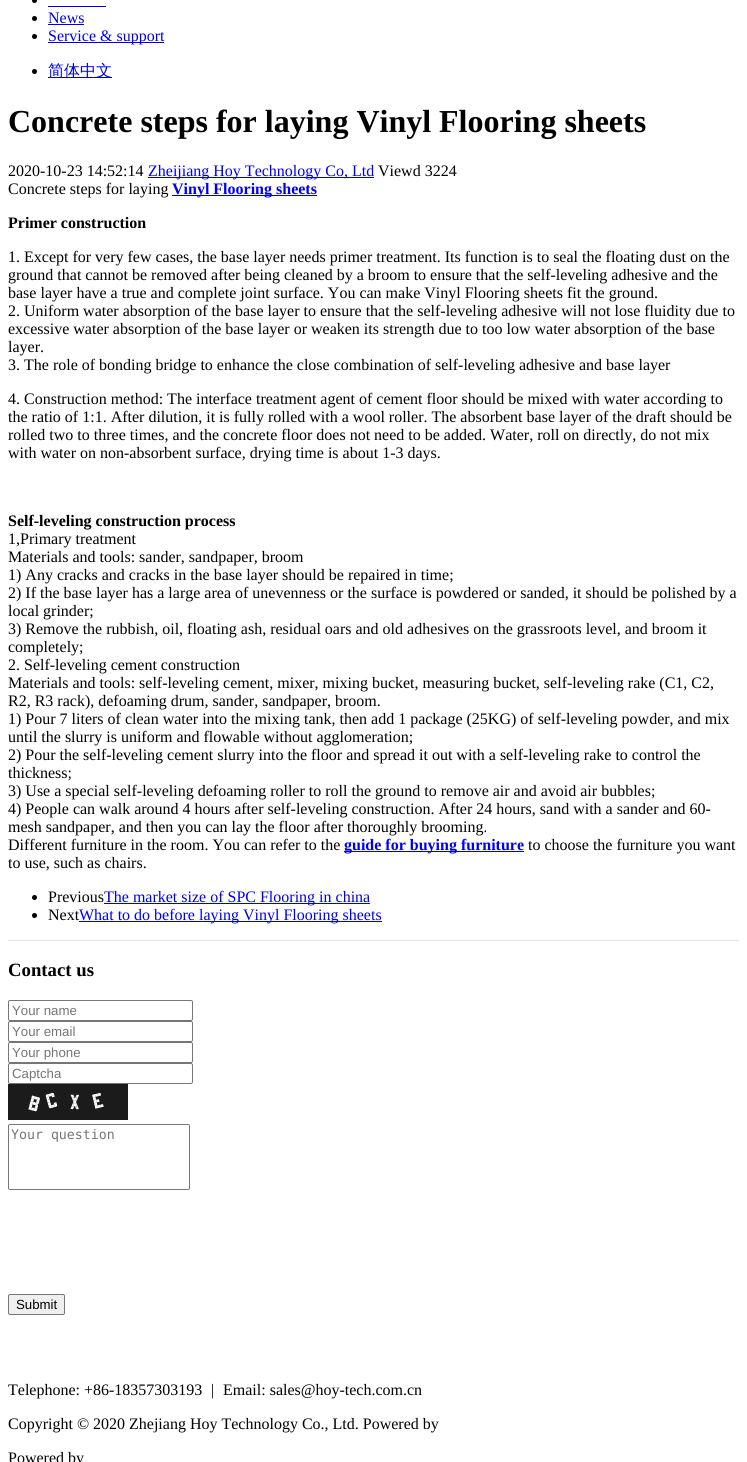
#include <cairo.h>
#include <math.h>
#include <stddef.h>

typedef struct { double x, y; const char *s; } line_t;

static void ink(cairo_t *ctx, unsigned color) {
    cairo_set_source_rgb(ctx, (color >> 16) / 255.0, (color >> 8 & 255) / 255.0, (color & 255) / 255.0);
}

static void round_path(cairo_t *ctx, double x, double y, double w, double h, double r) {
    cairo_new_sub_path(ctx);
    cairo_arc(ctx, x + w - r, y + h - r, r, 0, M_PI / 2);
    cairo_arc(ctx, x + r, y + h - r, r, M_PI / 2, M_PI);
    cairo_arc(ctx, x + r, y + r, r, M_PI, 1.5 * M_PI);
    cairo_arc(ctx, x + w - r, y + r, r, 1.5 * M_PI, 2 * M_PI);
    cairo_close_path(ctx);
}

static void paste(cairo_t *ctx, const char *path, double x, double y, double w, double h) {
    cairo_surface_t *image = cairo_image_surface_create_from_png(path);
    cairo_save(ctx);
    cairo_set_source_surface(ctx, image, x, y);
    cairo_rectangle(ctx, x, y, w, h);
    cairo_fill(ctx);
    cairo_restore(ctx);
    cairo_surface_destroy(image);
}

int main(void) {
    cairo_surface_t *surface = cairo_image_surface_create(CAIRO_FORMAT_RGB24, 747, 1462);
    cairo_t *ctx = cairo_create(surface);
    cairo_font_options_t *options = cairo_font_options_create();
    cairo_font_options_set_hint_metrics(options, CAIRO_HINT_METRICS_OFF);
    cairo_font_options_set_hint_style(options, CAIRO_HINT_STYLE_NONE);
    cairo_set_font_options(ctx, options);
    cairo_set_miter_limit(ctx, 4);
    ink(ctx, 0xFFFFFF);
    cairo_paint(ctx);
    ink(ctx, 0x000000);
    cairo_arc(ctx, 34.5, 0.5, 2.5, 0, 2 * M_PI);
    cairo_fill(ctx);
    ink(ctx, 0x0000EE);
    cairo_rectangle(ctx, 48, 6, 58, 1);
    cairo_fill(ctx);
    ink(ctx, 0x000000);
    cairo_arc(ctx, 34.5, 18.5, 2.5, 0, 2 * M_PI);
    cairo_fill(ctx);
    cairo_select_font_face(ctx, "Liberation Serif", CAIRO_FONT_SLANT_NORMAL, CAIRO_FONT_WEIGHT_NORMAL);
    cairo_set_font_size(ctx, 16);
    ink(ctx, 0x0000EE);
    cairo_move_to(ctx, 48, 23);
    cairo_show_text(ctx, "News");
    cairo_rectangle(ctx, 48, 24, 36, 1);
    cairo_fill(ctx);
    ink(ctx, 0x000000);
    cairo_arc(ctx, 34.5, 36.5, 2.5, 0, 2 * M_PI);
    cairo_fill(ctx);
    ink(ctx, 0x0000EE);
    cairo_rectangle(ctx, 48, 42, 116, 1);
    cairo_fill(ctx);
    cairo_move_to(ctx, 48, 41);
    cairo_show_text(ctx, "Service & support");
    ink(ctx, 0x000000);
    cairo_new_path(ctx);
    cairo_arc(ctx, 34.5, 71.5, 2.5, 0, 2 * M_PI);
    cairo_fill(ctx);
    ink(ctx, 0x0000EE);
    cairo_rectangle(ctx, 48, 77, 64, 1);
    cairo_fill(ctx);
    cairo_select_font_face(ctx, "WenQuanYi Zen Hei Medium", CAIRO_FONT_SLANT_NORMAL, CAIRO_FONT_WEIGHT_NORMAL);
    cairo_move_to(ctx, 48, 76);
    cairo_show_text(ctx, "简体中文");
    ink(ctx, 0xE5E5E5);
    cairo_rectangle(ctx, 8, 940, 731, 1);
    cairo_fill(ctx);
    cairo_select_font_face(ctx, "Liberation Serif", CAIRO_FONT_SLANT_NORMAL, CAIRO_FONT_WEIGHT_BOLD);
    cairo_set_font_size(ctx, 32);
    ink(ctx, 0x000000);
    cairo_move_to(ctx, 8, 132);
    cairo_show_text(ctx, "Concrete steps for laying Vinyl Flooring sheets");
    cairo_select_font_face(ctx, "Liberation Serif", CAIRO_FONT_SLANT_NORMAL, CAIRO_FONT_WEIGHT_NORMAL);
    cairo_set_font_size(ctx, 16);
    cairo_move_to(ctx, 8, 176);
    cairo_show_text(ctx, "2020-10-23 14:52:14");
    ink(ctx, 0x0000EE);
    cairo_rectangle(ctx, 148, 177, 226, 1);
    cairo_fill(ctx);
    cairo_move_to(ctx, 148, 176);
    cairo_show_text(ctx, "Zheijiang Hoy Technology Co, Ltd");
    ink(ctx, 0x000000);
    cairo_move_to(ctx, 378, 176);
    cairo_show_text(ctx, "Viewd 3224");
    cairo_move_to(ctx, 8, 194);
    cairo_show_text(ctx, "Concrete steps for laying");
    ink(ctx, 0x0000EE);
    cairo_rectangle(ctx, 172, 195, 145, 1);
    cairo_fill(ctx);
    cairo_select_font_face(ctx, "Liberation Serif", CAIRO_FONT_SLANT_NORMAL, CAIRO_FONT_WEIGHT_BOLD);
    cairo_move_to(ctx, 172, 194);
    cairo_show_text(ctx, "Vinyl Flooring sheets");
    ink(ctx, 0x000000);
    cairo_move_to(ctx, 8, 228);
    cairo_show_text(ctx, "Primer construction");
    cairo_select_font_face(ctx, "Liberation Serif", CAIRO_FONT_SLANT_NORMAL, CAIRO_FONT_WEIGHT_NORMAL);
    {
        static const line_t items[] = {
            {8, 262, "1. Except for very few cases, the base layer needs primer treatment. Its function is to seal the floating dust on the"},
            {8, 280, "ground that cannot be removed after being cleaned by a broom to ensure that the self-leveling adhesive and the"},
            {8, 298, "base layer have a true and complete joint surface. You can make Vinyl Flooring sheets fit the ground."},
            {8, 316, "2. Uniform water absorption of the base layer to ensure that the self-leveling adhesive will not lose fluidity due to"},
            {8, 334, "excessive water absorption of the base layer or weaken its strength due to too low water absorption of the base"},
            {8, 352, "layer."},
            {8, 370, "3. The role of bonding bridge to enhance the close combination of self-leveling adhesive and base layer"},
            {8, 404, "4. Construction method: The interface treatment agent of cement floor should be mixed with water according to"},
            {8, 422, "the ratio of 1:1. After dilution, it is fully rolled with a wool roller. The absorbent base layer of the draft should be"},
            {8, 440, "rolled two to three times, and the concrete floor does not need to be added. Water, roll on directly, do not mix"},
            {8, 458, "with water on non-absorbent surface, drying time is about 1-3 days."},
        };
        for (size_t i = 0; i < sizeof items / sizeof *items; i++) {
            cairo_move_to(ctx, items[i].x, items[i].y);
            cairo_show_text(ctx, items[i].s);
        }
    }
    cairo_select_font_face(ctx, "Liberation Serif", CAIRO_FONT_SLANT_NORMAL, CAIRO_FONT_WEIGHT_BOLD);
    cairo_move_to(ctx, 8, 526);
    cairo_show_text(ctx, "Self-leveling construction process");
    cairo_select_font_face(ctx, "Liberation Serif", CAIRO_FONT_SLANT_NORMAL, CAIRO_FONT_WEIGHT_NORMAL);
    {
        static const line_t items[] = {
            {8, 544, "1,Primary treatment"},
            {8, 562, "Materials and tools: sander, sandpaper, broom"},
            {8, 580, "1) Any cracks and cracks in the base layer should be repaired in time;"},
            {8, 598, "2) If the base layer has a large area of unevenness or the surface is powdered or sanded, it should be polished by a"},
            {8, 616, "local grinder;"},
            {8, 634, "3) Remove the rubbish, oil, floating ash, residual oars and old adhesives on the grassroots level, and broom it"},
            {8, 652, "completely;"},
            {8, 670, "2. Self-leveling cement construction"},
            {8, 688, "Materials and tools: self-leveling cement, mixer, mixing bucket, measuring bucket, self-leveling rake (C1, C2,"},
            {8, 706, "R2, R3 rack), defoaming drum, sander, sandpaper, broom."},
            {8, 724, "1) Pour 7 liters of clean water into the mixing tank, then add 1 package (25KG) of self-leveling powder, and mix"},
            {8, 742, "until the slurry is uniform and flowable without agglomeration;"},
            {8, 760, "2) Pour the self-leveling cement slurry into the floor and spread it out with a self-leveling rake to control the"},
            {8, 778, "thickness;"},
            {8, 796, "3) Use a special self-leveling defoaming roller to roll the ground to remove air and avoid air bubbles;"},
            {8, 814, "4) People can walk around 4 hours after self-leveling construction. After 24 hours, sand with a sander and 60-"},
            {8, 832, "mesh sandpaper, and then you can lay the floor after thoroughly brooming."},
            {8, 850, "Different furniture in the room. You can refer to the"},
        };
        for (size_t i = 0; i < sizeof items / sizeof *items; i++) {
            cairo_move_to(ctx, items[i].x, items[i].y);
            cairo_show_text(ctx, items[i].s);
        }
    }
    ink(ctx, 0x0000EE);
    cairo_rectangle(ctx, 344, 851, 180, 1);
    cairo_fill(ctx);
    cairo_select_font_face(ctx, "Liberation Serif", CAIRO_FONT_SLANT_NORMAL, CAIRO_FONT_WEIGHT_BOLD);
    cairo_move_to(ctx, 344, 850);
    cairo_show_text(ctx, "guide for buying furniture");
    cairo_select_font_face(ctx, "Liberation Serif", CAIRO_FONT_SLANT_NORMAL, CAIRO_FONT_WEIGHT_NORMAL);
    ink(ctx, 0x000000);
    cairo_move_to(ctx, 528, 850);
    cairo_show_text(ctx, "to choose the furniture you want");
    cairo_move_to(ctx, 8, 868);
    cairo_show_text(ctx, "to use, such as chairs.");
    cairo_new_path(ctx);
    cairo_arc(ctx, 34.5, 897.5, 2.5, 0, 2 * M_PI);
    cairo_fill(ctx);
    cairo_move_to(ctx, 48, 902);
    cairo_show_text(ctx, "Previous");
    ink(ctx, 0x0000EE);
    cairo_rectangle(ctx, 104, 903, 266, 1);
    cairo_fill(ctx);
    cairo_move_to(ctx, 104, 902);
    cairo_show_text(ctx, "The market size of SPC Flooring in china");
    ink(ctx, 0x000000);
    cairo_new_path(ctx);
    cairo_arc(ctx, 34.5, 915.5, 2.5, 0, 2 * M_PI);
    cairo_fill(ctx);
    cairo_move_to(ctx, 48, 920);
    cairo_show_text(ctx, "Next");
    ink(ctx, 0x0000EE);
    cairo_rectangle(ctx, 79, 921, 303, 1);
    cairo_fill(ctx);
    cairo_move_to(ctx, 79, 920);
    cairo_show_text(ctx, "What to do before laying Vinyl Flooring sheets");
    cairo_select_font_face(ctx, "Liberation Serif", CAIRO_FONT_SLANT_NORMAL, CAIRO_FONT_WEIGHT_BOLD);
    cairo_set_font_size(ctx, 18.75);
    ink(ctx, 0x000000);
    cairo_move_to(ctx, 8, 976);
    cairo_show_text(ctx, "Contact us");
    round_path(ctx, 8.5, 1000.5, 184, 20, 1.5);
    ink(ctx, 0x767676);
    cairo_set_line_width(ctx, 1);
    cairo_stroke(ctx);
    cairo_select_font_face(ctx, "Liberation Sans", CAIRO_FONT_SLANT_NORMAL, CAIRO_FONT_WEIGHT_NORMAL);
    cairo_set_font_size(ctx, 13.25);
    ink(ctx, 0x757575);
    cairo_move_to(ctx, 12, 1015);
    cairo_show_text(ctx, "Your name");
    round_path(ctx, 8.5, 1021.5, 184, 20, 1.5);
    ink(ctx, 0x767676);
    cairo_stroke(ctx);
    ink(ctx, 0x757575);
    cairo_move_to(ctx, 12, 1036);
    cairo_show_text(ctx, "Your email");
    round_path(ctx, 8.5, 1042.5, 184, 20, 1.5);
    ink(ctx, 0x767676);
    cairo_stroke(ctx);
    ink(ctx, 0x757575);
    cairo_move_to(ctx, 12, 1057);
    cairo_show_text(ctx, "Your phone");
    round_path(ctx, 8.5, 1063.5, 184, 20, 1.5);
    ink(ctx, 0x767676);
    cairo_stroke(ctx);
    ink(ctx, 0x757575);
    cairo_move_to(ctx, 12, 1078);
    cairo_show_text(ctx, "Captcha");
    paste(ctx, "media/1.png", 8, 1084, 120, 36);
    round_path(ctx, 8.5, 1124.5, 181, 65, 1.5);
    ink(ctx, 0x767676);
    cairo_stroke(ctx);
    cairo_select_font_face(ctx, "DejaVu Sans Mono", CAIRO_FONT_SLANT_NORMAL, CAIRO_FONT_WEIGHT_NORMAL);
    ink(ctx, 0x757575);
    cairo_move_to(ctx, 11, 1139);
    cairo_show_text(ctx, "Your question");
    ink(ctx, 0xEFEFEF);
    round_path(ctx, 8.5, 1294.5, 56, 20, 1.5);
    cairo_fill_preserve(ctx);
    ink(ctx, 0x767676);
    cairo_stroke(ctx);
    cairo_select_font_face(ctx, "Liberation Sans", CAIRO_FONT_SLANT_NORMAL, CAIRO_FONT_WEIGHT_NORMAL);
    ink(ctx, 0x000000);
    cairo_move_to(ctx, 16, 1309);
    cairo_show_text(ctx, "Submit");
    cairo_select_font_face(ctx, "Liberation Serif", CAIRO_FONT_SLANT_NORMAL, CAIRO_FONT_WEIGHT_NORMAL);
    cairo_set_font_size(ctx, 16);
    cairo_move_to(ctx, 8, 1395);
    cairo_show_text(ctx, "Telephone: +86-18357303193");
    cairo_select_font_face(ctx, "Liberation Serif", CAIRO_FONT_SLANT_ITALIC, CAIRO_FONT_WEIGHT_NORMAL);
    cairo_move_to(ctx, 210, 1395);
    cairo_show_text(ctx, "|");
    cairo_select_font_face(ctx, "Liberation Serif", CAIRO_FONT_SLANT_NORMAL, CAIRO_FONT_WEIGHT_NORMAL);
    {
        static const line_t items[] = {
            {223, 1395, "Email: sales@hoy-tech.com.cn"},
            {8, 1429, "Copyright © 2020 Zhejiang Hoy Technology Co., Ltd. Powered by"},
            {8, 1463, "Powered by"},
        };
        for (size_t i = 0; i < sizeof items / sizeof *items; i++) {
            cairo_move_to(ctx, items[i].x, items[i].y);
            cairo_show_text(ctx, items[i].s);
        }
    }
    cairo_surface_write_to_png(surface, "image.png");
    cairo_font_options_destroy(options);
    cairo_destroy(ctx);
    cairo_surface_destroy(surface);
    return 0;
}
